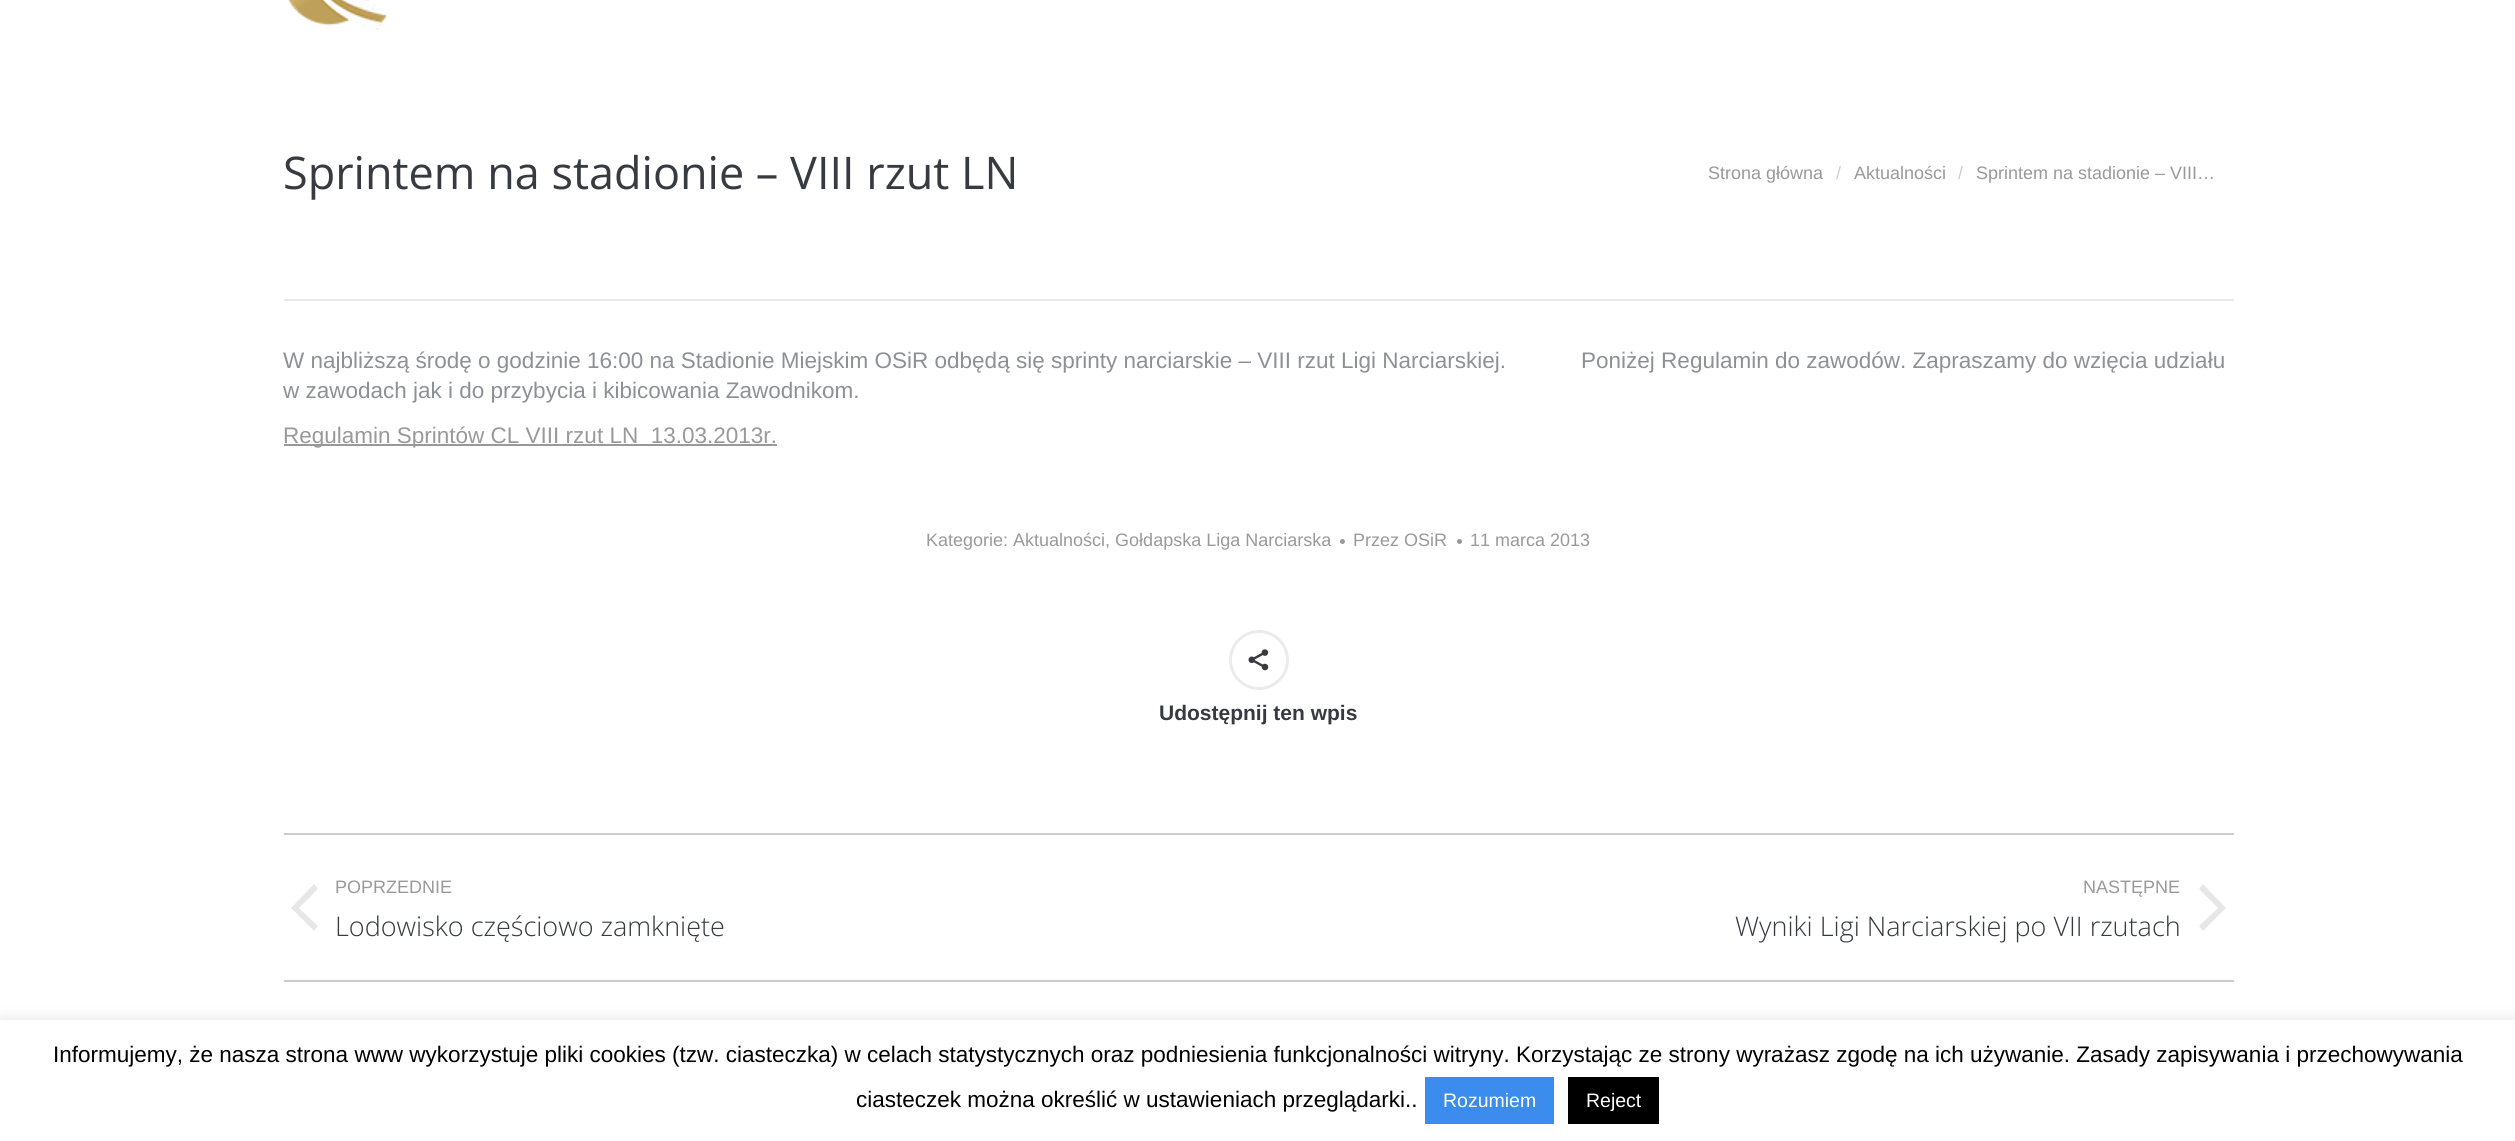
#include <cairo.h>
#include <math.h>
#include <stddef.h>


static void ink(cairo_t *ctx, unsigned color) {
    cairo_set_source_rgb(ctx, (color >> 16) / 255.0, (color >> 8 & 255) / 255.0, (color & 255) / 255.0);
}

static void round_path(cairo_t *ctx, double x, double y, double w, double h, double r) {
    cairo_new_sub_path(ctx);
    cairo_arc(ctx, x + w - r, y + h - r, r, 0, M_PI / 2);
    cairo_arc(ctx, x + r, y + h - r, r, M_PI / 2, M_PI);
    cairo_arc(ctx, x + r, y + r, r, M_PI, 1.5 * M_PI);
    cairo_arc(ctx, x + w - r, y + r, r, 1.5 * M_PI, 2 * M_PI);
    cairo_close_path(ctx);
}

static void blur_box(cairo_t *ctx, double x, double y, double w, double h, double r, double blur, double alpha) {
    cairo_push_group_with_content(ctx, CAIRO_CONTENT_ALPHA);
    cairo_set_operator(ctx, CAIRO_OPERATOR_SOURCE);
    for (int i = 15; i >= -15 && fmin(w, h) + blur * i / 3 > 0; i -= 2) {
        double e = blur * i / 6;
        cairo_set_source_rgba(ctx, 0, 0, 0, alpha * erfc((i - 1) / 8.5) / 2);
        round_path(ctx, x - e, y - e, w + 2 * e, h + 2 * e, fmax(0, fmin(r + e + blur * .6, fmin(w, h) / 2 + e)));
        cairo_fill(ctx);
    }
    cairo_pattern_t *soft = cairo_pop_group(ctx);
    cairo_mask(ctx, soft);
    cairo_pattern_destroy(soft);
}

static void paste(cairo_t *ctx, const char *path, double x, double y, double w, double h) {
    cairo_surface_t *image = cairo_image_surface_create_from_png(path);
    cairo_save(ctx);
    cairo_set_source_surface(ctx, image, x, y);
    cairo_rectangle(ctx, x, y, w, h);
    cairo_fill(ctx);
    cairo_restore(ctx);
    cairo_surface_destroy(image);
}

int main(void) {
    cairo_surface_t *surface = cairo_image_surface_create(CAIRO_FORMAT_RGB24, 2515, 1141);
    cairo_t *ctx = cairo_create(surface);
    cairo_font_options_t *options = cairo_font_options_create();
    cairo_font_options_set_hint_metrics(options, CAIRO_HINT_METRICS_OFF);
    cairo_font_options_set_hint_style(options, CAIRO_HINT_STYLE_NONE);
    cairo_set_font_options(ctx, options);
    cairo_set_miter_limit(ctx, 4);
    ink(ctx, 0xFFFFFF);
    cairo_paint(ctx);
    paste(ctx, "media/1.png", 287, 0, 101, 30);
    cairo_select_font_face(ctx, "Open Sans", CAIRO_FONT_SLANT_NORMAL, CAIRO_FONT_WEIGHT_NORMAL);
    cairo_set_font_size(ctx, 45);
    ink(ctx, 0x373A41);
    cairo_move_to(ctx, 283, 189);
    cairo_show_text(ctx, "Sprintem na stadionie – VIII rzut LN");
    cairo_select_font_face(ctx, "Liberation Sans", CAIRO_FONT_SLANT_NORMAL, CAIRO_FONT_WEIGHT_NORMAL);
    cairo_set_font_size(ctx, 18);
    ink(ctx, 0x999999);
    cairo_move_to(ctx, 1708, 179);
    cairo_show_text(ctx, "Strona główna");
    ink(ctx, 0xCCCCCC);
    cairo_move_to(ctx, 1836, 179);
    cairo_show_text(ctx, "/");
    ink(ctx, 0x999999);
    cairo_move_to(ctx, 1854, 179);
    cairo_show_text(ctx, "Aktualności");
    ink(ctx, 0xCCCCCC);
    cairo_move_to(ctx, 1958, 179);
    cairo_show_text(ctx, "/");
    ink(ctx, 0x999999);
    cairo_move_to(ctx, 1976, 179);
    cairo_show_text(ctx, "Sprintem na stadionie – VIII…");
    ink(ctx, 0xE9E9E9);
    cairo_rectangle(ctx, 284, 299, 1950, 2);
    cairo_fill(ctx);
    cairo_set_font_size(ctx, 22.5);
    ink(ctx, 0x8D9095);
    cairo_move_to(ctx, 283, 368);
    cairo_show_text(ctx, "W najbliższą środę o godzinie 16:00 na Stadionie Miejskim OSiR odbędą się sprinty narciarskie – VIII rzut Ligi Narciarskiej.            Poniżej Regulamin do zawodów. Zapraszamy do wzięcia udziału");
    cairo_move_to(ctx, 283, 398);
    cairo_show_text(ctx, "w zawodach jak i do przybycia i kibicowania Zawodnikom.");
    ink(ctx, 0x999999);
    cairo_rectangle(ctx, 284, 444, 493, 2);
    cairo_fill(ctx);
    cairo_move_to(ctx, 283, 443);
    cairo_show_text(ctx, "Regulamin Sprintów CL VIII rzut LN  13.03.2013r.");
    cairo_set_font_size(ctx, 18);
    cairo_move_to(ctx, 926, 546);
    cairo_show_text(ctx, "Kategorie: Aktualności, Gołdapska Liga Narciarska");
    cairo_new_path(ctx);
    cairo_arc(ctx, 1342.5, 541.5, 2.5, 0, 2 * M_PI);
    cairo_fill(ctx);
    cairo_move_to(ctx, 1353, 546);
    cairo_show_text(ctx, "Przez OSiR");
    cairo_new_path(ctx);
    cairo_arc(ctx, 1459.5, 541.5, 2.5, 0, 2 * M_PI);
    cairo_fill(ctx);
    cairo_move_to(ctx, 1470, 546);
    cairo_show_text(ctx, "11 marca 2013");
    cairo_new_path(ctx);
    cairo_arc(ctx, 1259, 660, 28.5, 0, 2 * M_PI);
    ink(ctx, 0xEBEBEC);
    cairo_set_line_width(ctx, 3);
    cairo_stroke(ctx);
    paste(ctx, "media/2.png", 1248, 649, 21, 22);
    cairo_select_font_face(ctx, "Liberation Sans", CAIRO_FONT_SLANT_NORMAL, CAIRO_FONT_WEIGHT_BOLD);
    cairo_set_font_size(ctx, 21);
    ink(ctx, 0x373A41);
    cairo_move_to(ctx, 1159, 720);
    cairo_show_text(ctx, "Udostępnij ten wpis");
    ink(ctx, 0xCCCCCC);
    cairo_rectangle(ctx, 284, 833, 1950, 2);
    cairo_fill(ctx);
    cairo_rectangle(ctx, 284, 980, 1950, 2);
    cairo_fill(ctx);
    ink(ctx, 0xE7E7E8);
    cairo_new_path(ctx);
    cairo_move_to(ctx, 299, 908);
    cairo_line_to(ctx, 318, 889);
    cairo_line_to(ctx, 314, 884);
    cairo_line_to(ctx, 291, 908);
    cairo_line_to(ctx, 314, 931);
    cairo_line_to(ctx, 318, 926);
    cairo_close_path(ctx);
    cairo_fill(ctx);
    cairo_select_font_face(ctx, "Liberation Sans", CAIRO_FONT_SLANT_NORMAL, CAIRO_FONT_WEIGHT_NORMAL);
    cairo_set_font_size(ctx, 18);
    ink(ctx, 0x999999);
    cairo_move_to(ctx, 335, 893);
    cairo_show_text(ctx, "POPRZEDNIE");
    cairo_select_font_face(ctx, "Open Sans Light", CAIRO_FONT_SLANT_NORMAL, CAIRO_FONT_WEIGHT_NORMAL);
    cairo_set_font_size(ctx, 27);
    ink(ctx, 0x373A41);
    cairo_move_to(ctx, 335, 936);
    cairo_show_text(ctx, "Lodowisko częściowo zamknięte");
    cairo_select_font_face(ctx, "Liberation Sans", CAIRO_FONT_SLANT_NORMAL, CAIRO_FONT_WEIGHT_NORMAL);
    cairo_set_font_size(ctx, 18);
    ink(ctx, 0x999999);
    cairo_move_to(ctx, 2083, 893);
    cairo_show_text(ctx, "NASTĘPNE");
    ink(ctx, 0xE7E7E8);
    cairo_new_path(ctx);
    cairo_move_to(ctx, 2218, 908);
    cairo_line_to(ctx, 2199, 889);
    cairo_line_to(ctx, 2203, 884);
    cairo_line_to(ctx, 2226, 908);
    cairo_line_to(ctx, 2203, 931);
    cairo_line_to(ctx, 2199, 926);
    cairo_close_path(ctx);
    cairo_fill(ctx);
    cairo_select_font_face(ctx, "Open Sans Light", CAIRO_FONT_SLANT_NORMAL, CAIRO_FONT_WEIGHT_NORMAL);
    cairo_set_font_size(ctx, 27);
    ink(ctx, 0x373A41);
    cairo_move_to(ctx, 1735, 936);
    cairo_show_text(ctx, "Wyniki Ligi Narciarskiej po VII rzutach");
    ink(ctx, 0xACABAB);
    blur_box(ctx, 0, 1019, 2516, 121, 0, 7.5, 0.3);
    ink(ctx, 0xFFFFFF);
    cairo_rectangle(ctx, 0, 1020, 2515, 121);
    cairo_fill(ctx);
    cairo_select_font_face(ctx, "Liberation Sans", CAIRO_FONT_SLANT_NORMAL, CAIRO_FONT_WEIGHT_NORMAL);
    cairo_set_font_size(ctx, 22.5);
    ink(ctx, 0x000000);
    cairo_move_to(ctx, 53, 1062);
    cairo_show_text(ctx, "Informujemy, że nasza strona www wykorzystuje pliki cookies (tzw. ciasteczka) w celach statystycznych oraz podniesienia funkcjonalności witryny. Korzystając ze strony wyrażasz zgodę na ich używanie. Zasady zapisywania i przechowywania");
    cairo_move_to(ctx, 856, 1107);
    cairo_show_text(ctx, "ciasteczek można określić w ustawieniach przeglądarki..");
    ink(ctx, 0x3B8CED);
    cairo_rectangle(ctx, 1425, 1077, 129, 47);
    cairo_fill(ctx);
    cairo_set_font_size(ctx, 19.5);
    ink(ctx, 0xFFFFFF);
    cairo_move_to(ctx, 1443, 1107);
    cairo_show_text(ctx, "Rozumiem");
    ink(ctx, 0x000000);
    cairo_rectangle(ctx, 1568, 1077, 91, 47);
    cairo_fill(ctx);
    ink(ctx, 0xFFFFFF);
    cairo_move_to(ctx, 1586, 1107);
    cairo_show_text(ctx, "Reject");
    cairo_surface_write_to_png(surface, "image.png");
    cairo_font_options_destroy(options);
    cairo_destroy(ctx);
    cairo_surface_destroy(surface);
    return 0;
}
